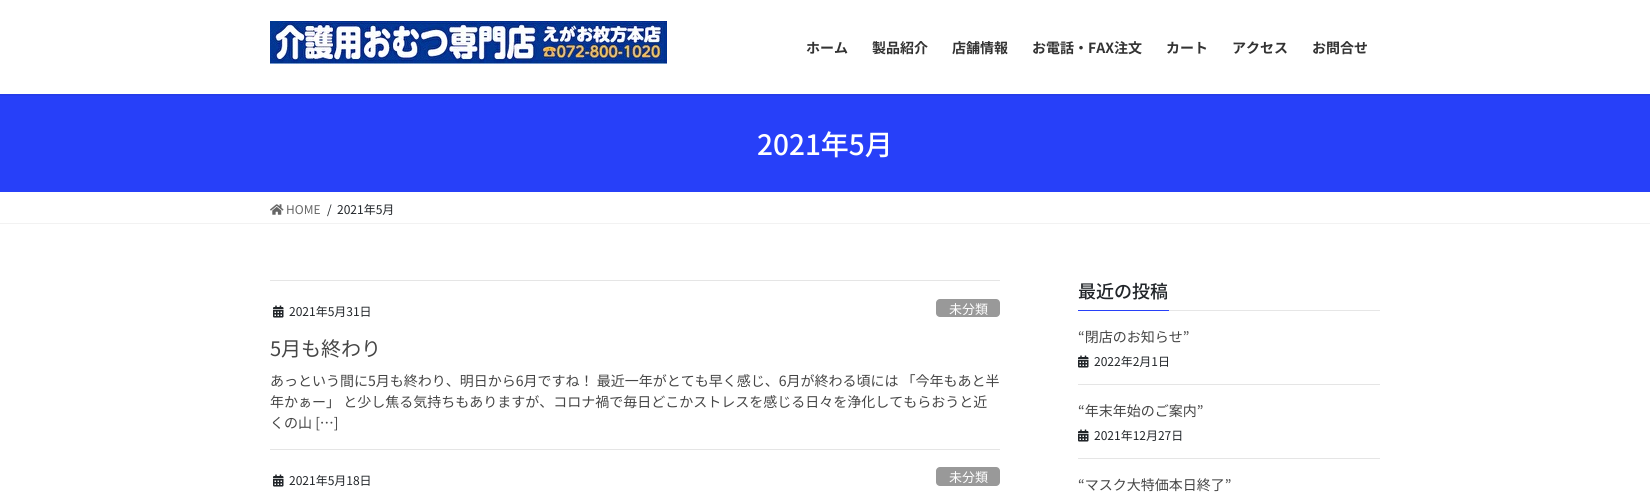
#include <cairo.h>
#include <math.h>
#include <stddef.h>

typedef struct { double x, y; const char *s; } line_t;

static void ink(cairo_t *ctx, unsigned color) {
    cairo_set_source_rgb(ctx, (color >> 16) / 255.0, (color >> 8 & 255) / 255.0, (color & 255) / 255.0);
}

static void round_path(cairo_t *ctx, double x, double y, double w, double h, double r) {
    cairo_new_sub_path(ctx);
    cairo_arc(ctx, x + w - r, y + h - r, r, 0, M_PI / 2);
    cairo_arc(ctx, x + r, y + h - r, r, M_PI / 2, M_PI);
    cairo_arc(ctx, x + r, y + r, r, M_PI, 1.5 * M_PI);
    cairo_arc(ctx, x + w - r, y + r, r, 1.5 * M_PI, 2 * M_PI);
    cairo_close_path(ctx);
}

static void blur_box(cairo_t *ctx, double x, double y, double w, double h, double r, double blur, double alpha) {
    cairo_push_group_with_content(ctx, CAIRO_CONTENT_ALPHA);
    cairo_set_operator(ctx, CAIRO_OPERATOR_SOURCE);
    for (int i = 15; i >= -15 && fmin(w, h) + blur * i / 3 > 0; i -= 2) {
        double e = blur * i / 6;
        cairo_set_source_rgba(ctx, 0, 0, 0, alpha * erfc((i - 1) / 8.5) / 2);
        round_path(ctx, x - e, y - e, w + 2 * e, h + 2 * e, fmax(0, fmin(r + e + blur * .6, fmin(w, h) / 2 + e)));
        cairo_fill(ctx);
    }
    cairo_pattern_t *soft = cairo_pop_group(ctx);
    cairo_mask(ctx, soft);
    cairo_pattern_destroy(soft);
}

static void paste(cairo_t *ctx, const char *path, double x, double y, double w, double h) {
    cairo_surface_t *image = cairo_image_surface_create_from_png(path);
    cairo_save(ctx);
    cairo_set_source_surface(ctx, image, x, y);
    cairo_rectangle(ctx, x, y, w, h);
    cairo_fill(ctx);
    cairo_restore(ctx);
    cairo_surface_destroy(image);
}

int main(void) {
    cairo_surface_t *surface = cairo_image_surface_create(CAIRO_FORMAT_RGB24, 1650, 501);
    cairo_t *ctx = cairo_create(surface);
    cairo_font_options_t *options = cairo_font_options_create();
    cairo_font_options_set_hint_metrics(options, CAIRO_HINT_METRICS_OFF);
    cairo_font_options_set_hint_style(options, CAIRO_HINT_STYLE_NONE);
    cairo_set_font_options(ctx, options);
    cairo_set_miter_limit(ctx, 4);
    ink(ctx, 0xFFFFFF);
    cairo_paint(ctx);
    ink(ctx, 0x2740F9);
    cairo_rectangle(ctx, 0, 94, 1650, 98);
    cairo_fill(ctx);
    cairo_save(ctx);
    cairo_rectangle(ctx, 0, 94, 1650, 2);
    cairo_clip(ctx);
    ink(ctx, 0x000000);
    blur_box(ctx, 0, 1, 1650, 94, 0, 1.5, 0.1);
    cairo_restore(ctx);
    paste(ctx, "media/1.png", 270, 21, 397, 43);
    cairo_select_font_face(ctx, "Noto Sans JP", CAIRO_FONT_SLANT_NORMAL, CAIRO_FONT_WEIGHT_BOLD);
    cairo_set_font_size(ctx, 14);
    ink(ctx, 0x333333);
    {
        static const line_t items[] = {
            {806, 53, "ホーム"},
            {872, 53, "製品紹介"},
            {952, 53, "店舗情報"},
            {1032, 53, "お電話・FAX注文"},
            {1166, 53, "カート"},
            {1232, 53, "アクセス"},
            {1312, 53, "お問合せ"},
        };
        for (size_t i = 0; i < sizeof items / sizeof *items; i++) {
            cairo_move_to(ctx, items[i].x, items[i].y);
            cairo_show_text(ctx, items[i].s);
        }
    }
    cairo_select_font_face(ctx, "Noto Sans JP Medium", CAIRO_FONT_SLANT_NORMAL, CAIRO_FONT_WEIGHT_NORMAL);
    cairo_set_font_size(ctx, 28);
    ink(ctx, 0xFFFFFF);
    cairo_move_to(ctx, 757, 155);
    cairo_show_text(ctx, "2021年5月");
    ink(ctx, 0xF2F2F2);
    cairo_rectangle(ctx, 0, 223, 1650, 1);
    cairo_fill(ctx);
    paste(ctx, "media/2.png", 270, 204, 14, 11);
    cairo_select_font_face(ctx, "Noto Sans JP", CAIRO_FONT_SLANT_NORMAL, CAIRO_FONT_WEIGHT_NORMAL);
    cairo_set_font_size(ctx, 12);
    ink(ctx, 0x666666);
    cairo_move_to(ctx, 286, 214);
    cairo_show_text(ctx, "HOME");
    ink(ctx, 0x212529);
    cairo_move_to(ctx, 327, 214);
    cairo_show_text(ctx, "/");
    cairo_move_to(ctx, 337, 214);
    cairo_show_text(ctx, "2021年5月");
    ink(ctx, 0xE5E5E5);
    cairo_rectangle(ctx, 270, 280, 730, 1);
    cairo_fill(ctx);
    cairo_rectangle(ctx, 270, 449, 730, 1);
    cairo_fill(ctx);
    paste(ctx, "media/3.png", 273, 305, 11, 13);
    ink(ctx, 0x212529);
    cairo_move_to(ctx, 289, 316);
    cairo_show_text(ctx, "2021年5月31日");
    ink(ctx, 0x999999);
    round_path(ctx, 936, 299, 64, 18, 4);
    cairo_fill(ctx);
    cairo_set_font_size(ctx, 13);
    ink(ctx, 0xFFFFFF);
    cairo_move_to(ctx, 949, 314);
    cairo_show_text(ctx, "未分類");
    cairo_set_font_size(ctx, 20);
    ink(ctx, 0x464646);
    cairo_move_to(ctx, 270, 356);
    cairo_show_text(ctx, "5月も終わり");
    cairo_set_font_size(ctx, 14);
    {
        static const line_t items[] = {
            {270, 386, "あっという間に5月も終わり、明日から6月ですね！ 最近一年がとても早く感じ、6月が終わる頃には 「今年もあと半"},
            {270, 407, "年かぁー」 と少し焦る気持ちもありますが、コロナ禍で毎日どこかストレスを感じる日々を浄化してもらおうと近"},
            {270, 428, "くの山 […]"},
        };
        for (size_t i = 0; i < sizeof items / sizeof *items; i++) {
            cairo_move_to(ctx, items[i].x, items[i].y);
            cairo_show_text(ctx, items[i].s);
        }
    }
    paste(ctx, "media/3.png", 273, 474, 11, 13);
    cairo_set_font_size(ctx, 12);
    ink(ctx, 0x212529);
    cairo_move_to(ctx, 289, 485);
    cairo_show_text(ctx, "2021年5月18日");
    ink(ctx, 0x999999);
    round_path(ctx, 936, 467, 64, 19, 4);
    cairo_fill(ctx);
    cairo_set_font_size(ctx, 13);
    ink(ctx, 0xFFFFFF);
    cairo_move_to(ctx, 949, 482);
    cairo_show_text(ctx, "未分類");
    ink(ctx, 0xE6E6E6);
    cairo_rectangle(ctx, 1169, 310, 211, 1);
    cairo_fill(ctx);
    cairo_select_font_face(ctx, "Noto Sans JP Medium", CAIRO_FONT_SLANT_NORMAL, CAIRO_FONT_WEIGHT_NORMAL);
    cairo_set_font_size(ctx, 18);
    ink(ctx, 0x212529);
    cairo_move_to(ctx, 1078, 298);
    cairo_show_text(ctx, "最近の投稿");
    ink(ctx, 0x2740F9);
    cairo_rectangle(ctx, 1078, 310, 91, 1);
    cairo_fill(ctx);
    ink(ctx, 0xE5E5E5);
    cairo_rectangle(ctx, 1078, 384, 302, 1);
    cairo_fill(ctx);
    cairo_select_font_face(ctx, "Noto Sans JP", CAIRO_FONT_SLANT_NORMAL, CAIRO_FONT_WEIGHT_NORMAL);
    cairo_set_font_size(ctx, 14);
    ink(ctx, 0x464646);
    cairo_move_to(ctx, 1078, 342);
    cairo_show_text(ctx, "“閉店のお知らせ”");
    paste(ctx, "media/3.png", 1078, 355, 11, 13);
    cairo_set_font_size(ctx, 12);
    ink(ctx, 0x212529);
    cairo_move_to(ctx, 1094, 366);
    cairo_show_text(ctx, "2022年2月1日");
    ink(ctx, 0xE5E5E5);
    cairo_rectangle(ctx, 1078, 458, 302, 1);
    cairo_fill(ctx);
    cairo_set_font_size(ctx, 14);
    ink(ctx, 0x464646);
    cairo_move_to(ctx, 1078, 416);
    cairo_show_text(ctx, "“年末年始のご案内”");
    paste(ctx, "media/3.png", 1078, 429, 11, 13);
    cairo_set_font_size(ctx, 12);
    ink(ctx, 0x212529);
    cairo_move_to(ctx, 1094, 440);
    cairo_show_text(ctx, "2021年12月27日");
    cairo_set_font_size(ctx, 14);
    ink(ctx, 0x464646);
    cairo_move_to(ctx, 1078, 490);
    cairo_show_text(ctx, "“マスク大特価本日終了”");
    cairo_surface_write_to_png(surface, "image.png");
    cairo_font_options_destroy(options);
    cairo_destroy(ctx);
    cairo_surface_destroy(surface);
    return 0;
}
